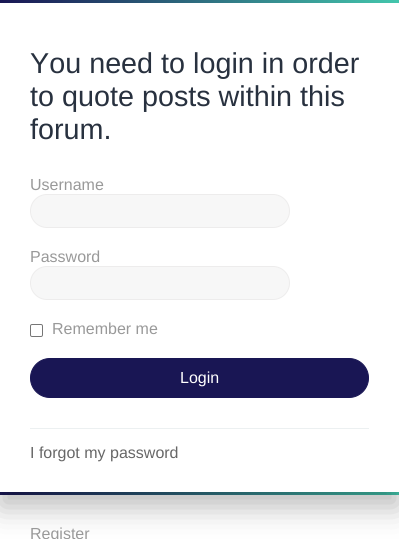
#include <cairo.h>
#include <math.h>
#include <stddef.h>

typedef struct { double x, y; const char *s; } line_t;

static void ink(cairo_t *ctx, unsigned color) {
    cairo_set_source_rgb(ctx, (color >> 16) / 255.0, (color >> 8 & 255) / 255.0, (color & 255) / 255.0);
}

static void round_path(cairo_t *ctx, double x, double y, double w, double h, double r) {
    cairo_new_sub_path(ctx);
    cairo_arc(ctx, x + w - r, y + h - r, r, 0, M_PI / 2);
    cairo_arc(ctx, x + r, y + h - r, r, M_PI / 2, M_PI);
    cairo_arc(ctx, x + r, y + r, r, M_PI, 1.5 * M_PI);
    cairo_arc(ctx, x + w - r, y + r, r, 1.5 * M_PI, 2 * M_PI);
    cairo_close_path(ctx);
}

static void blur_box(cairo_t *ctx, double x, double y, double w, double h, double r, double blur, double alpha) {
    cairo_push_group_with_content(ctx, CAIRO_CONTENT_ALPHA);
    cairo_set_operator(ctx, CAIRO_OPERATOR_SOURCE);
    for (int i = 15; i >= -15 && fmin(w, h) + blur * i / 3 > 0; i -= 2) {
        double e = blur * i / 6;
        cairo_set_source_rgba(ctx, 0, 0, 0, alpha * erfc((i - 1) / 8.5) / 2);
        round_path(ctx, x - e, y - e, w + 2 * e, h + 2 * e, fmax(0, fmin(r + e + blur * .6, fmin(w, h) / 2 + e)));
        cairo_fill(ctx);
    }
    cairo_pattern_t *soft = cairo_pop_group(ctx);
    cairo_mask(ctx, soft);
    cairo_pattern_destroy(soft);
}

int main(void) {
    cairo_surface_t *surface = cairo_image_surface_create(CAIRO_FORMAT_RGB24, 399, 539);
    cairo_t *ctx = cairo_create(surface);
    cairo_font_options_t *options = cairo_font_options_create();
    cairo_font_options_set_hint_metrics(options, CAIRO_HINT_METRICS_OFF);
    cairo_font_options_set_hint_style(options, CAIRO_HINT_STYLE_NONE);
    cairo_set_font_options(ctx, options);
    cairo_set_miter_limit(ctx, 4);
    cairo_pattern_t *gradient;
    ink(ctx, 0xFFFFFF);
    cairo_paint(ctx);
    gradient = cairo_pattern_create_linear(0, 494, 399, 494);
    cairo_pattern_add_color_stop_rgba(gradient, 0, 0.098, 0.086, 0.329, 1);
    cairo_pattern_add_color_stop_rgba(gradient, 1, 0.263, 0.776, 0.675, 1);
    cairo_set_source(ctx, gradient);
    cairo_pattern_destroy(gradient);
    cairo_rectangle(ctx, 0, 492, 399, 3);
    cairo_fill(ctx);
    ink(ctx, 0x000000);
    blur_box(ctx, 0, 15, 399, 492, 0, 15, 0.27);
    ink(ctx, 0xFFFFFF);
    cairo_rectangle(ctx, 0, 3, 399, 489);
    cairo_fill(ctx);
    gradient = cairo_pattern_create_linear(0, 1.5, 399, 1.5);
    cairo_pattern_add_color_stop_rgba(gradient, 0, 0.098, 0.086, 0.329, 1);
    cairo_pattern_add_color_stop_rgba(gradient, 1, 0.263, 0.776, 0.675, 1);
    cairo_set_source(ctx, gradient);
    cairo_pattern_destroy(gradient);
    cairo_rectangle(ctx, 0, 0, 399, 3);
    cairo_fill(ctx);
    cairo_select_font_face(ctx, "Liberation Sans", CAIRO_FONT_SLANT_NORMAL, CAIRO_FONT_WEIGHT_NORMAL);
    cairo_set_font_size(ctx, 28.75);
    ink(ctx, 0x28313F);
    {
        static const line_t items[] = {
            {30, 73, "You need to login in order"},
            {30, 106, "to quote posts within this"},
            {30, 139, "forum."},
        };
        for (size_t i = 0; i < sizeof items / sizeof *items; i++) {
            cairo_move_to(ctx, items[i].x, items[i].y);
            cairo_show_text(ctx, items[i].s);
        }
    }
    cairo_set_font_size(ctx, 16);
    ink(ctx, 0x999999);
    cairo_move_to(ctx, 30, 190);
    cairo_show_text(ctx, "Username");
    ink(ctx, 0xF7F7F7);
    round_path(ctx, 30.5, 194.5, 259, 33, 16.5);
    cairo_fill_preserve(ctx);
    ink(ctx, 0xEDECEC);
    cairo_set_line_width(ctx, 1);
    cairo_stroke(ctx);
    ink(ctx, 0x999999);
    cairo_move_to(ctx, 30, 262);
    cairo_show_text(ctx, "Password");
    ink(ctx, 0xF7F7F7);
    round_path(ctx, 30.5, 266.5, 259, 33, 16.5);
    cairo_fill_preserve(ctx);
    ink(ctx, 0xEDECEC);
    cairo_stroke(ctx);
    round_path(ctx, 30.5, 324.5, 12, 12, 1.5);
    ink(ctx, 0x767676);
    cairo_stroke(ctx);
    ink(ctx, 0x999999);
    cairo_move_to(ctx, 52, 334);
    cairo_show_text(ctx, "Remember me");
    ink(ctx, 0x191654);
    round_path(ctx, 30.5, 358.5, 338, 39, 19.5);
    cairo_fill_preserve(ctx);
    cairo_stroke(ctx);
    ink(ctx, 0xFFFFFF);
    cairo_move_to(ctx, 180, 383);
    cairo_show_text(ctx, "Login");
    ink(ctx, 0xECF0F1);
    cairo_rectangle(ctx, 30, 428, 339, 1);
    cairo_fill(ctx);
    ink(ctx, 0x676767);
    cairo_move_to(ctx, 30, 458);
    cairo_show_text(ctx, "I forgot my password");
    ink(ctx, 0x999999);
    cairo_move_to(ctx, 30, 539);
    cairo_show_text(ctx, "Register");
    cairo_surface_write_to_png(surface, "image.png");
    cairo_font_options_destroy(options);
    cairo_destroy(ctx);
    cairo_surface_destroy(surface);
    return 0;
}
